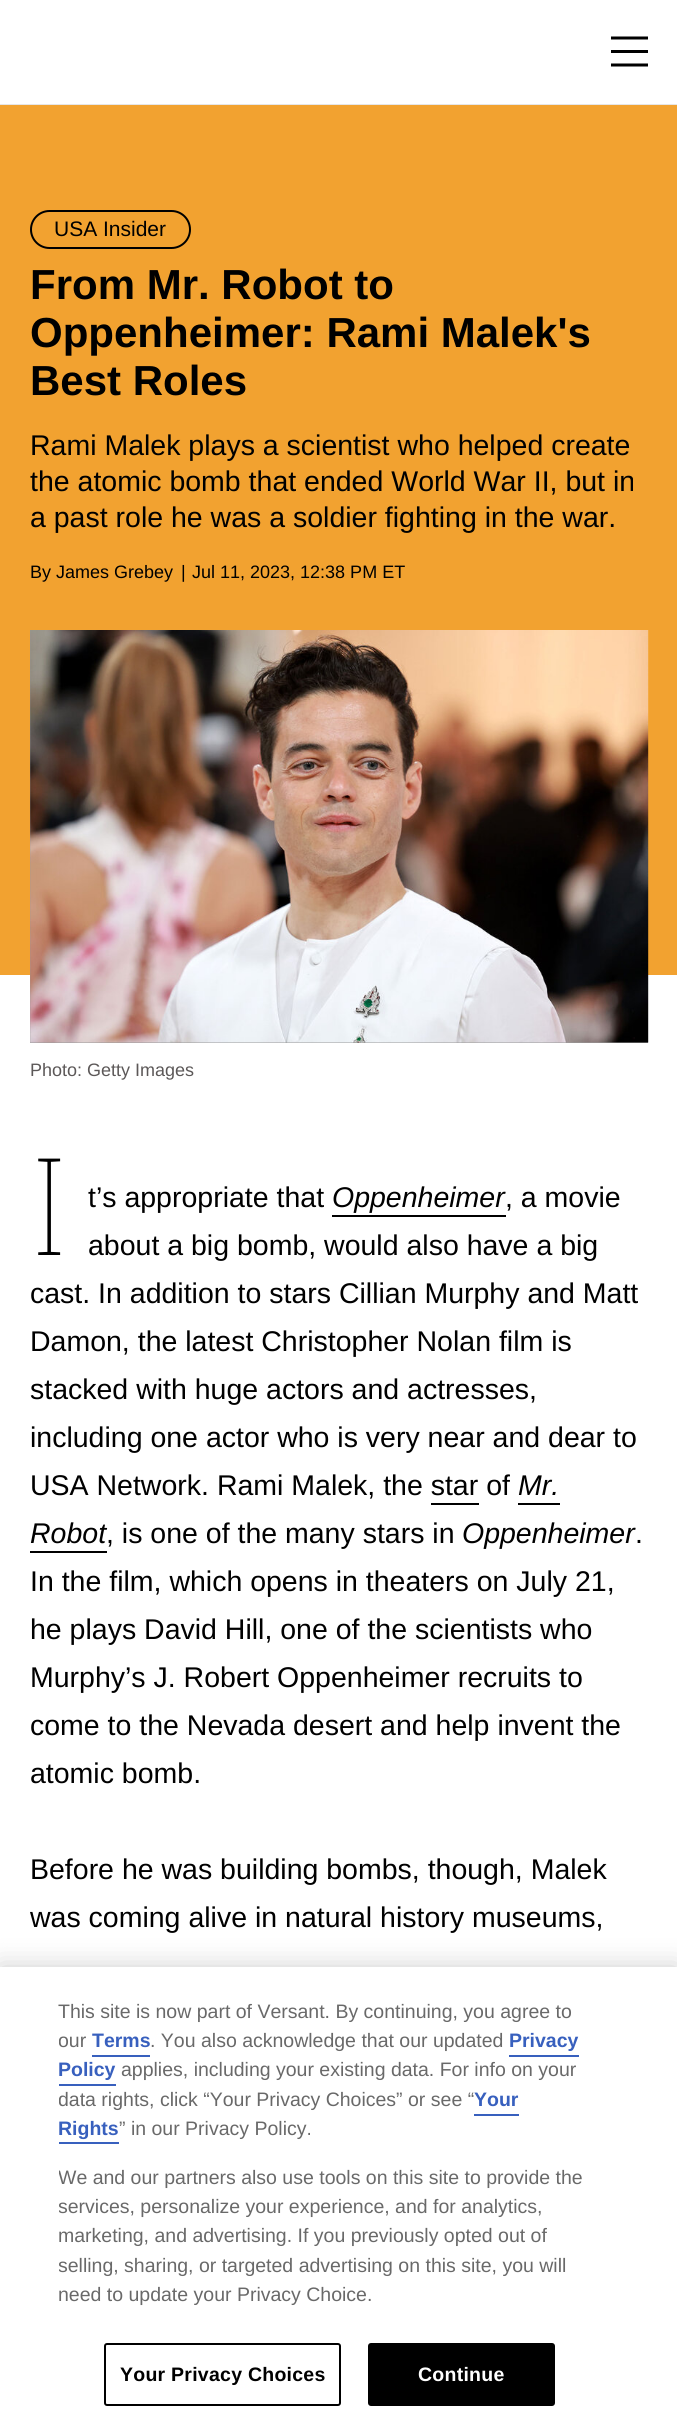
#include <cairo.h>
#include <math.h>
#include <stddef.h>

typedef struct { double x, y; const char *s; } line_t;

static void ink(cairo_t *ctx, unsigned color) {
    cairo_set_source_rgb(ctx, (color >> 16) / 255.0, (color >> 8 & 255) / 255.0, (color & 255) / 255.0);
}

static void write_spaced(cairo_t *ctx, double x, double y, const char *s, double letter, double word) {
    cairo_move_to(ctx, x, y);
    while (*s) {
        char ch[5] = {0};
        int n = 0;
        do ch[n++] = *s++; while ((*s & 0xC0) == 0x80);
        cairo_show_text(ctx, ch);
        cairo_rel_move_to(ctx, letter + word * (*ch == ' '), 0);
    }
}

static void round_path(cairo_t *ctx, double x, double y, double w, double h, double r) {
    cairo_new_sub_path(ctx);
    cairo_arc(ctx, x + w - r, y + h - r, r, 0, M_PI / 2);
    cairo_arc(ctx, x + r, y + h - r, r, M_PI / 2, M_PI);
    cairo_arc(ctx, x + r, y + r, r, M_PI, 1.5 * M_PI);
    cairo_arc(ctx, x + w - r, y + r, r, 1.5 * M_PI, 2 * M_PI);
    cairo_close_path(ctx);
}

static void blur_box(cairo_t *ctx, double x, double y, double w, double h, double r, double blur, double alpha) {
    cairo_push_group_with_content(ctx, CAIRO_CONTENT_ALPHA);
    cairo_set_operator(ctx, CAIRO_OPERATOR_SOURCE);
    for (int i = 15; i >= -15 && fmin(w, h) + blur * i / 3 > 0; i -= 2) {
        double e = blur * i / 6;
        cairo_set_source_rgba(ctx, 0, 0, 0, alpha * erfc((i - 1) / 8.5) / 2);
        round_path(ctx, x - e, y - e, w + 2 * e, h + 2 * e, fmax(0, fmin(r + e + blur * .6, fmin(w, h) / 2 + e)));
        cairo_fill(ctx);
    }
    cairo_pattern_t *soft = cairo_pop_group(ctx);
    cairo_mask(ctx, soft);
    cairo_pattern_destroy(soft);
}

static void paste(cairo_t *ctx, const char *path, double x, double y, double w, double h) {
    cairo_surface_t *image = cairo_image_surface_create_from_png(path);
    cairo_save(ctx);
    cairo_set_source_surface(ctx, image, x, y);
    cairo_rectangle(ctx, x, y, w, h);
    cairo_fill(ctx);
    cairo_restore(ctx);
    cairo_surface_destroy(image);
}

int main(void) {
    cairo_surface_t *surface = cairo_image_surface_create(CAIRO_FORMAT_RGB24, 677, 2430);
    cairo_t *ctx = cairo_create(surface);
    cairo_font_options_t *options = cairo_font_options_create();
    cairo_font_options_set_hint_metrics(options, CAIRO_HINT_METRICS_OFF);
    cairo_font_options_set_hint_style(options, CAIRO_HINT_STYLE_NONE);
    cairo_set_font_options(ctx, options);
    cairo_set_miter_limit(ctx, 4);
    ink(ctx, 0xFFFFFF);
    cairo_paint(ctx);
    cairo_save(ctx);
    cairo_rectangle(ctx, 611, 36, 37, 33);
    cairo_clip(ctx);
    ink(ctx, 0x000000);
    cairo_set_fill_rule(ctx, CAIRO_FILL_RULE_EVEN_ODD);
    cairo_new_path(ctx);
    cairo_move_to(ctx, 610.5, 36.5);
    cairo_line_to(ctx, 648, 36.5);
    cairo_line_to(ctx, 648, 39.5);
    cairo_line_to(ctx, 610.5, 39.5);
    cairo_close_path(ctx);
    cairo_move_to(ctx, 610.5, 50);
    cairo_line_to(ctx, 648, 50);
    cairo_line_to(ctx, 648, 53);
    cairo_line_to(ctx, 610.5, 53);
    cairo_close_path(ctx);
    cairo_move_to(ctx, 610.5, 63.5);
    cairo_line_to(ctx, 648, 63.5);
    cairo_line_to(ctx, 648, 66.5);
    cairo_line_to(ctx, 610.5, 66.5);
    cairo_close_path(ctx);
    cairo_fill(ctx);
    cairo_restore(ctx);
    ink(ctx, 0xE6E6E6);
    cairo_rectangle(ctx, 0, 104, 677, 1);
    cairo_fill(ctx);
    ink(ctx, 0xF2A230);
    cairo_rectangle(ctx, 0, 105, 677, 870);
    cairo_fill(ctx);
    round_path(ctx, 31, 211, 159, 37, 18.5);
    ink(ctx, 0x000000);
    cairo_stroke(ctx);
    cairo_select_font_face(ctx, "Liberation Sans", CAIRO_FONT_SLANT_NORMAL, CAIRO_FONT_WEIGHT_NORMAL);
    cairo_set_font_size(ctx, 21);
    cairo_move_to(ctx, 54, 236);
    cairo_show_text(ctx, "USA Insider");
    cairo_select_font_face(ctx, "Liberation Sans", CAIRO_FONT_SLANT_NORMAL, CAIRO_FONT_WEIGHT_BOLD);
    cairo_set_font_size(ctx, 42);
    {
        static const line_t items[] = {
            {30, 299, "From Mr. Robot to"},
            {30, 347, "Oppenheimer: Rami Malek's"},
            {30, 395, "Best Roles"},
        };
        for (size_t i = 0; i < sizeof items / sizeof *items; i++) {
            cairo_move_to(ctx, items[i].x, items[i].y);
            cairo_show_text(ctx, items[i].s);
        }
    }
    cairo_select_font_face(ctx, "Liberation Sans", CAIRO_FONT_SLANT_NORMAL, CAIRO_FONT_WEIGHT_NORMAL);
    cairo_set_font_size(ctx, 28.5);
    {
        static const line_t items[] = {
            {30, 455, "Rami Malek plays a scientist who helped create"},
            {30, 491, "the atomic bomb that ended World War II, but in"},
            {30, 527, "a past role he was a soldier fighting in the war."},
        };
        for (size_t i = 0; i < sizeof items / sizeof *items; i++) {
            cairo_move_to(ctx, items[i].x, items[i].y);
            cairo_show_text(ctx, items[i].s);
        }
    }
    cairo_set_font_size(ctx, 18);
    {
        static const line_t items[] = {
            {30, 578, "By James Grebey"},
            {181, 578, "|"},
            {192, 578, "Jul 11, 2023, 12:38 PM ET"},
        };
        for (size_t i = 0; i < sizeof items / sizeof *items; i++) {
            cairo_move_to(ctx, items[i].x, items[i].y);
            cairo_show_text(ctx, items[i].s);
        }
    }
    ink(ctx, 0x9B9B9B);
    cairo_rectangle(ctx, 30, 630, 618, 413);
    cairo_fill(ctx);
    paste(ctx, "media/1.png", 30, 630, 619, 413);
    ink(ctx, 0x5C5858);
    cairo_move_to(ctx, 30, 1076);
    cairo_show_text(ctx, "Photo: Getty Images");
    cairo_select_font_face(ctx, "Noto Sans Thin", CAIRO_FONT_SLANT_NORMAL, CAIRO_FONT_WEIGHT_NORMAL);
    cairo_set_font_size(ctx, 135);
    ink(ctx, 0x000000);
    write_spaced(ctx, 30, 1255, "I", -2, 0);
    cairo_select_font_face(ctx, "Liberation Sans", CAIRO_FONT_SLANT_NORMAL, CAIRO_FONT_WEIGHT_NORMAL);
    cairo_set_font_size(ctx, 28.5);
    cairo_move_to(ctx, 88, 1207);
    cairo_show_text(ctx, "t’s appropriate that");
    cairo_select_font_face(ctx, "Liberation Sans", CAIRO_FONT_SLANT_ITALIC, CAIRO_FONT_WEIGHT_NORMAL);
    cairo_move_to(ctx, 332, 1207);
    cairo_show_text(ctx, "Oppenheimer");
    cairo_rectangle(ctx, 332, 1215, 174, 2);
    cairo_fill(ctx);
    cairo_select_font_face(ctx, "Liberation Sans", CAIRO_FONT_SLANT_NORMAL, CAIRO_FONT_WEIGHT_NORMAL);
    {
        static const line_t items[] = {
            {505, 1207, ", a movie"},
            {88, 1255, "about a big bomb, would also have a big"},
            {30, 1303, "cast. In addition to stars Cillian Murphy and Matt"},
            {30, 1351, "Damon, the latest Christopher Nolan film is"},
            {30, 1399, "stacked with huge actors and actresses,"},
            {30, 1447, "including one actor who is very near and dear to"},
            {30, 1495, "USA Network. Rami Malek, the star of"},
        };
        for (size_t i = 0; i < sizeof items / sizeof *items; i++) {
            cairo_move_to(ctx, items[i].x, items[i].y);
            cairo_show_text(ctx, items[i].s);
        }
    }
    cairo_select_font_face(ctx, "Liberation Sans", CAIRO_FONT_SLANT_ITALIC, CAIRO_FONT_WEIGHT_NORMAL);
    cairo_move_to(ctx, 518, 1495);
    cairo_show_text(ctx, "Mr.");
    cairo_rectangle(ctx, 518, 1503, 42, 2);
    cairo_fill(ctx);
    cairo_rectangle(ctx, 431, 1503, 48, 2);
    cairo_fill(ctx);
    cairo_move_to(ctx, 30, 1543);
    cairo_show_text(ctx, "Robot");
    cairo_rectangle(ctx, 30, 1551, 77, 2);
    cairo_fill(ctx);
    cairo_select_font_face(ctx, "Liberation Sans", CAIRO_FONT_SLANT_NORMAL, CAIRO_FONT_WEIGHT_NORMAL);
    cairo_move_to(ctx, 106, 1543);
    cairo_show_text(ctx, ", is one of the many stars in");
    cairo_select_font_face(ctx, "Liberation Sans", CAIRO_FONT_SLANT_ITALIC, CAIRO_FONT_WEIGHT_NORMAL);
    cairo_move_to(ctx, 462, 1543);
    cairo_show_text(ctx, "Oppenheimer");
    cairo_select_font_face(ctx, "Liberation Sans", CAIRO_FONT_SLANT_NORMAL, CAIRO_FONT_WEIGHT_NORMAL);
    {
        static const line_t items[] = {
            {635, 1543, "."},
            {30, 1591, "In the film, which opens in theaters on July 21,"},
            {30, 1639, "he plays David Hill, one of the scientists who"},
            {30, 1687, "Murphy’s J. Robert Oppenheimer recruits to"},
            {30, 1735, "come to the Nevada desert and help invent the"},
            {30, 1783, "atomic bomb."},
            {30, 1879, "Before he was building bombs, though, Malek"},
            {30, 1927, "was coming alive in natural history museums,"},
        };
        for (size_t i = 0; i < sizeof items / sizeof *items; i++) {
            cairo_move_to(ctx, items[i].x, items[i].y);
            cairo_show_text(ctx, items[i].s);
        }
    }
    ink(ctx, 0x000000);
    blur_box(ctx, 0, 1967, 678, 463, 0, 13.5, 0.2);
    ink(ctx, 0xFFFFFF);
    cairo_rectangle(ctx, 0, 1967, 677, 463);
    cairo_fill(ctx);
    cairo_set_font_size(ctx, 19.5);
    ink(ctx, 0x696969);
    cairo_move_to(ctx, 58, 2018);
    cairo_show_text(ctx, "This site is now part of Versant. By continuing, you agree to");
    cairo_save(ctx);
    cairo_rectangle(ctx, 59, 1997, 531, 331);
    cairo_clip(ctx);
    cairo_move_to(ctx, 58, 2047);
    cairo_show_text(ctx, "our");
    cairo_restore(ctx);
    cairo_select_font_face(ctx, "Liberation Sans", CAIRO_FONT_SLANT_NORMAL, CAIRO_FONT_WEIGHT_BOLD);
    ink(ctx, 0x3860BE);
    cairo_move_to(ctx, 92, 2047);
    cairo_show_text(ctx, "Terms");
    cairo_rectangle(ctx, 92, 2055, 58, 2);
    cairo_fill(ctx);
    cairo_select_font_face(ctx, "Liberation Sans", CAIRO_FONT_SLANT_NORMAL, CAIRO_FONT_WEIGHT_NORMAL);
    ink(ctx, 0x696969);
    cairo_move_to(ctx, 150, 2047);
    cairo_show_text(ctx, ". You also acknowledge that our updated");
    cairo_select_font_face(ctx, "Liberation Sans", CAIRO_FONT_SLANT_NORMAL, CAIRO_FONT_WEIGHT_BOLD);
    ink(ctx, 0x3860BE);
    cairo_move_to(ctx, 509, 2047);
    cairo_show_text(ctx, "Privacy");
    cairo_rectangle(ctx, 509, 2055, 70, 2);
    cairo_fill(ctx);
    cairo_move_to(ctx, 58, 2076);
    cairo_show_text(ctx, "Policy");
    cairo_rectangle(ctx, 59, 2084, 57, 2);
    cairo_fill(ctx);
    cairo_select_font_face(ctx, "Liberation Sans", CAIRO_FONT_SLANT_NORMAL, CAIRO_FONT_WEIGHT_NORMAL);
    ink(ctx, 0x696969);
    cairo_move_to(ctx, 121, 2076);
    cairo_show_text(ctx, "applies, including your existing data. For info on your");
    cairo_save(ctx);
    cairo_rectangle(ctx, 59, 1997, 531, 331);
    cairo_clip(ctx);
    cairo_move_to(ctx, 58, 2106);
    cairo_show_text(ctx, "data rights, click “Your Privacy Choices” or see “");
    cairo_restore(ctx);
    cairo_select_font_face(ctx, "Liberation Sans", CAIRO_FONT_SLANT_NORMAL, CAIRO_FONT_WEIGHT_BOLD);
    ink(ctx, 0x3860BE);
    cairo_move_to(ctx, 474, 2106);
    cairo_show_text(ctx, "Your");
    cairo_rectangle(ctx, 474, 2114, 45, 2);
    cairo_fill(ctx);
    cairo_move_to(ctx, 58, 2135);
    cairo_show_text(ctx, "Rights");
    cairo_rectangle(ctx, 59, 2142, 60, 2);
    cairo_fill(ctx);
    cairo_select_font_face(ctx, "Liberation Sans", CAIRO_FONT_SLANT_NORMAL, CAIRO_FONT_WEIGHT_NORMAL);
    ink(ctx, 0x696969);
    cairo_move_to(ctx, 119, 2135);
    cairo_show_text(ctx, "” in our Privacy Policy.");
    cairo_save(ctx);
    cairo_rectangle(ctx, 59, 1997, 531, 331);
    cairo_clip(ctx);
    cairo_move_to(ctx, 58, 2184);
    cairo_show_text(ctx, "We and our partners also use tools on this site to provide the");
    cairo_move_to(ctx, 58, 2213);
    cairo_show_text(ctx, "services, personalize your experience, and for analytics,");
    cairo_restore(ctx);
    cairo_move_to(ctx, 58, 2242);
    cairo_show_text(ctx, "marketing, and advertising. If you previously opted out of");
    cairo_save(ctx);
    cairo_rectangle(ctx, 59, 1997, 531, 331);
    cairo_clip(ctx);
    cairo_move_to(ctx, 58, 2272);
    cairo_show_text(ctx, "selling, sharing, or targeted advertising on this site, you will");
    cairo_restore(ctx);
    cairo_move_to(ctx, 58, 2301);
    cairo_show_text(ctx, "need to update your Privacy Choice.");
    round_path(ctx, 105, 2344, 235, 61, 2);
    ink(ctx, 0x000000);
    cairo_stroke(ctx);
    cairo_select_font_face(ctx, "Liberation Sans", CAIRO_FONT_SLANT_NORMAL, CAIRO_FONT_WEIGHT_BOLD);
    write_spaced(ctx, 120, 2381, "Your Privacy Choices", 0.25, 0);
    round_path(ctx, 369, 2344, 185, 61, 2);
    cairo_fill_preserve(ctx);
    cairo_stroke(ctx);
    ink(ctx, 0xFFFFFF);
    write_spaced(ctx, 418, 2381, "Continue", 0.25, 0);
    cairo_surface_write_to_png(surface, "image.png");
    cairo_font_options_destroy(options);
    cairo_destroy(ctx);
    cairo_surface_destroy(surface);
    return 0;
}
